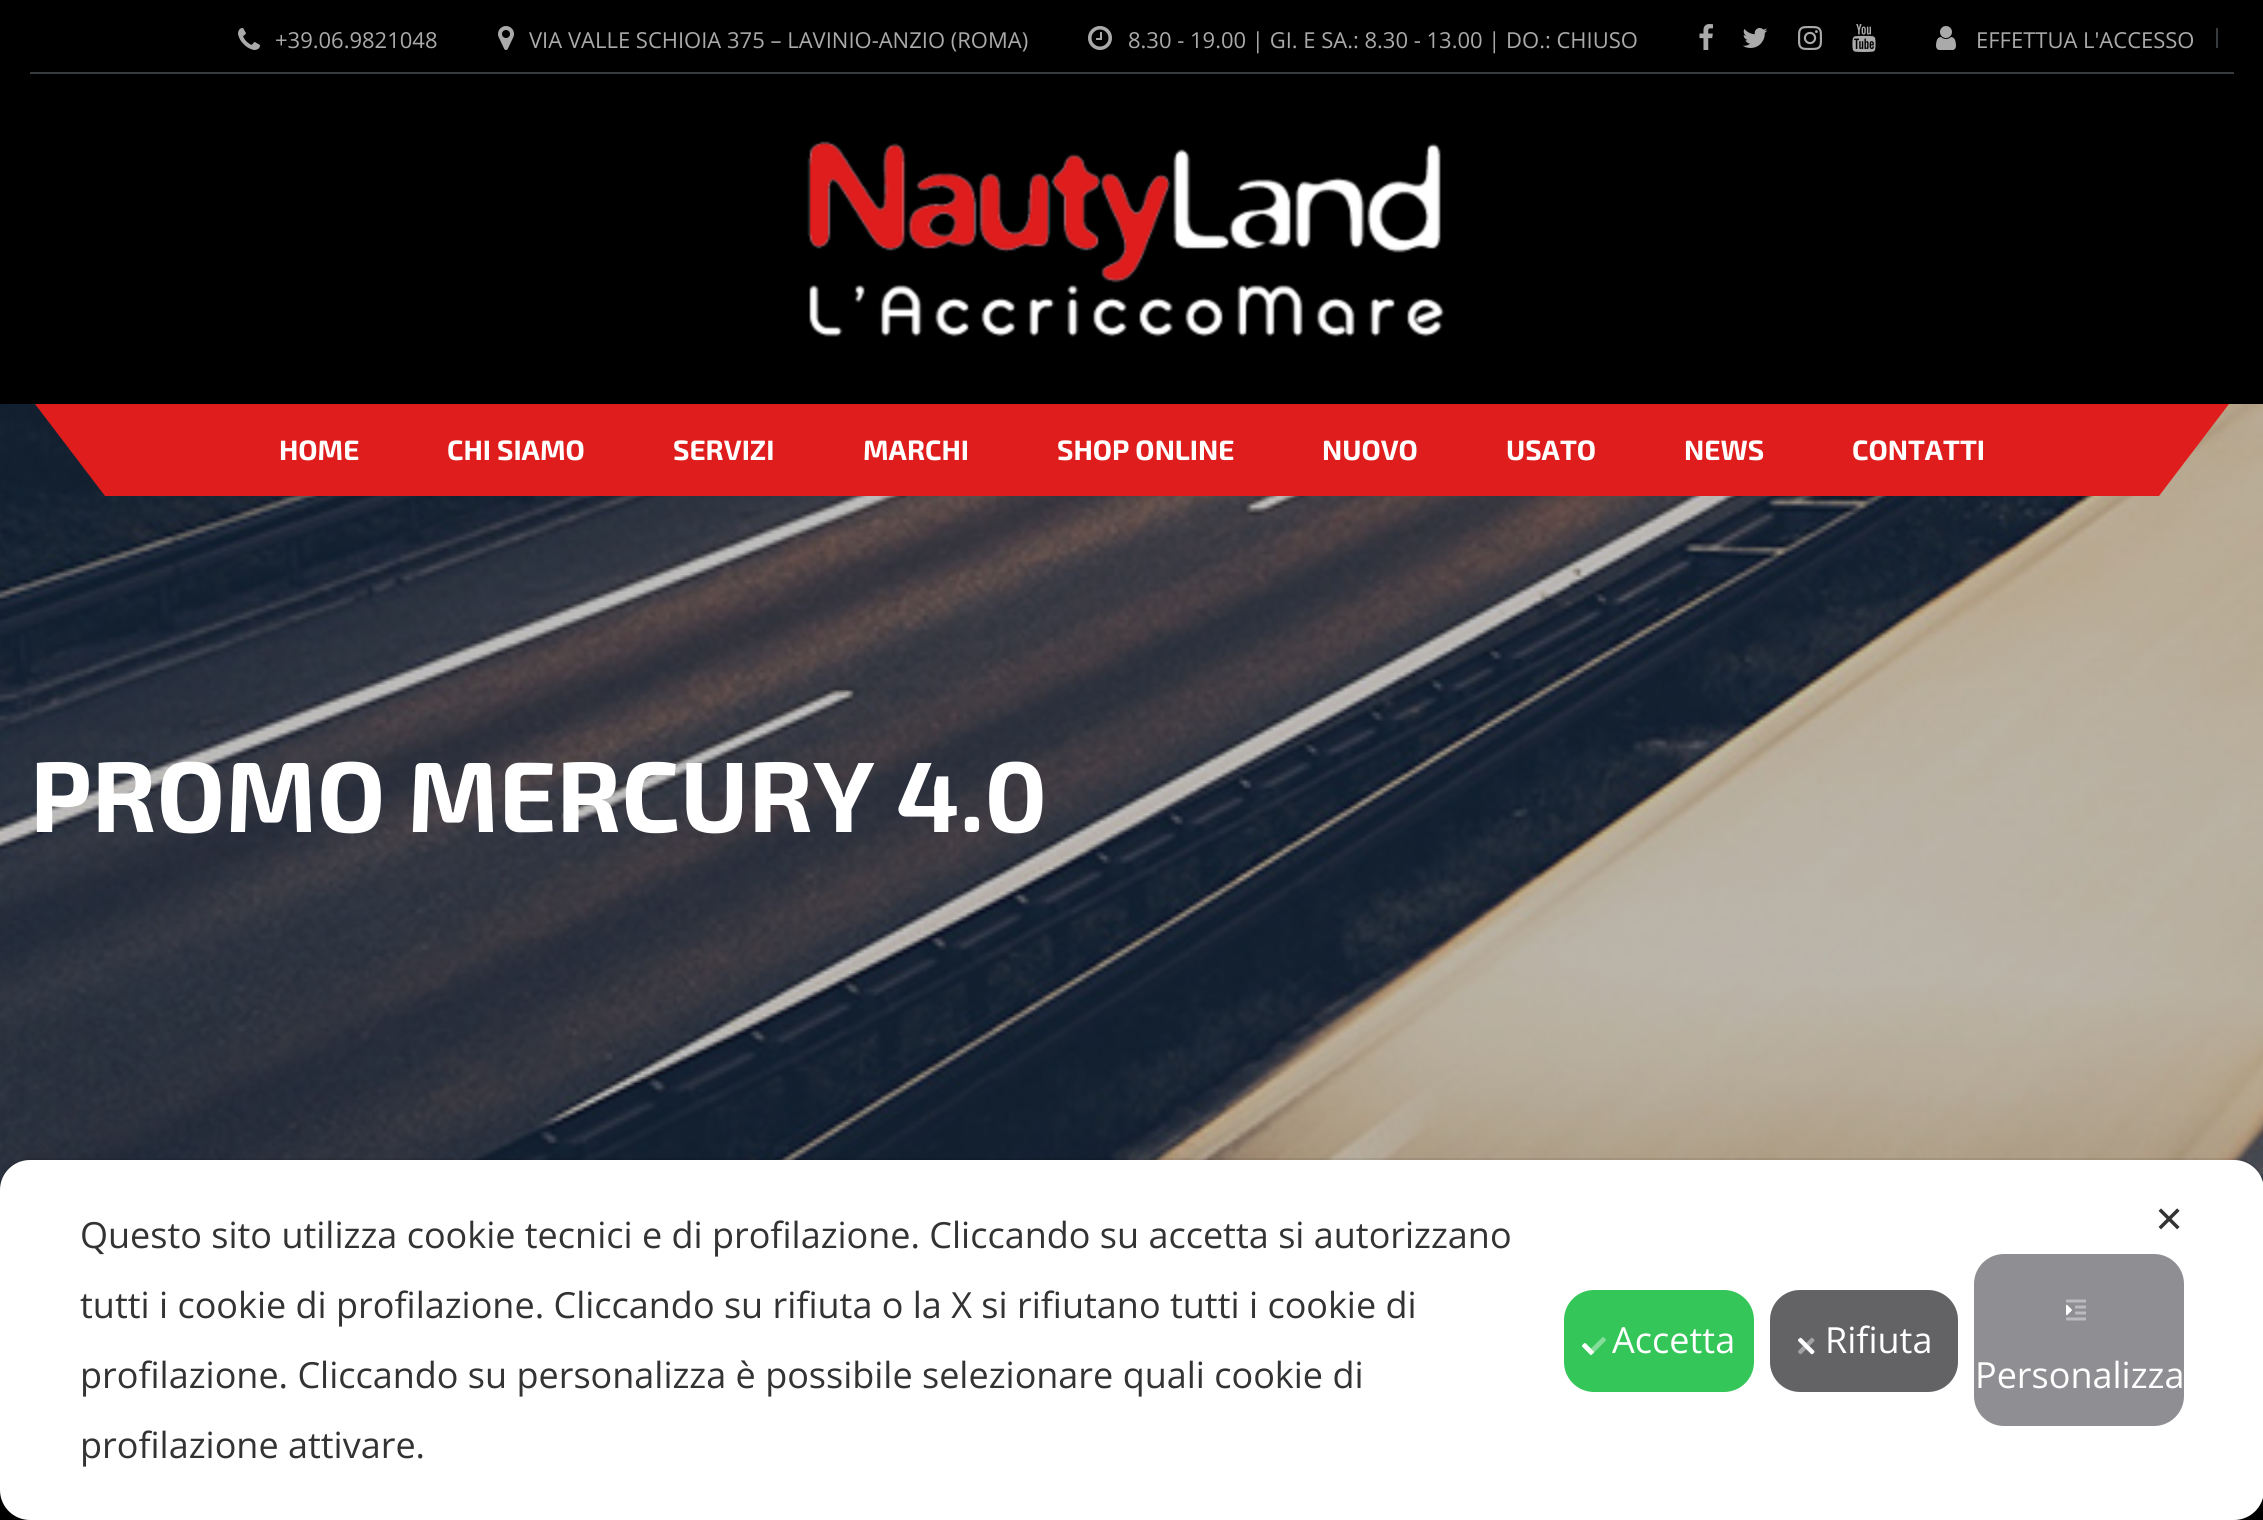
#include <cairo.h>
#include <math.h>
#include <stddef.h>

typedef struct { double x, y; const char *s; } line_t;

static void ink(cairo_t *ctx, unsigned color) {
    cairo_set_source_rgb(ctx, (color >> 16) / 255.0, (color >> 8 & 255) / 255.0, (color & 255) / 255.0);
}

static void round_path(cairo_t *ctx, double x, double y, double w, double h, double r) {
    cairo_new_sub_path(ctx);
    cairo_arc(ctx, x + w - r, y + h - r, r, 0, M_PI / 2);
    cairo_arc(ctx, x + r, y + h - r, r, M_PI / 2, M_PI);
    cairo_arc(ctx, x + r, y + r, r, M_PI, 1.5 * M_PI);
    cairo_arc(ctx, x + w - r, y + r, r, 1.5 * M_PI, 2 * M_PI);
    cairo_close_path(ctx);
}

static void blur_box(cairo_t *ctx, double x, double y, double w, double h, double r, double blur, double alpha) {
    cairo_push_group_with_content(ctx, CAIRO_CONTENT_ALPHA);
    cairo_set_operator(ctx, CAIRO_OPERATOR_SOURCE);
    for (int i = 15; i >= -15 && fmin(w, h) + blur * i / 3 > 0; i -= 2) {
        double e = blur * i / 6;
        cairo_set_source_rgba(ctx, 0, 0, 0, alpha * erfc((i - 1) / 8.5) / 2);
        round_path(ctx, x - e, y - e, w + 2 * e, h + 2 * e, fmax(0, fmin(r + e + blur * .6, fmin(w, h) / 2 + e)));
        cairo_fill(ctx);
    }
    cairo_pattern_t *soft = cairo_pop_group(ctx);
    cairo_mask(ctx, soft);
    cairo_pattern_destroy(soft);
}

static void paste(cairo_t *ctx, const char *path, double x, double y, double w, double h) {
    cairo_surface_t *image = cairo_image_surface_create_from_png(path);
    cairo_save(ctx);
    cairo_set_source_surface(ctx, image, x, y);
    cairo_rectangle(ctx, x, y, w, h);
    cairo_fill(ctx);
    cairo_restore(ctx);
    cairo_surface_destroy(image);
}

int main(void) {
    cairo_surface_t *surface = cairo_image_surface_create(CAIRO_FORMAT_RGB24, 2263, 1520);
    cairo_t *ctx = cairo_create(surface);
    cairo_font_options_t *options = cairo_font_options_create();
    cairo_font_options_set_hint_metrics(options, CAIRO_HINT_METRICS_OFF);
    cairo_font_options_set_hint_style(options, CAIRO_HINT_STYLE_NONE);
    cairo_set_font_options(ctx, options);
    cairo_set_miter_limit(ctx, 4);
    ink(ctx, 0x000000);
    cairo_paint(ctx);
    ink(ctx, 0x373B3E);
    cairo_rectangle(ctx, 30, 72, 2204, 2);
    cairo_fill(ctx);
    paste(ctx, "media/1.png", 238, 28, 22, 22);
    cairo_select_font_face(ctx, "Open Sans", CAIRO_FONT_SLANT_NORMAL, CAIRO_FONT_WEIGHT_NORMAL);
    cairo_set_font_size(ctx, 22);
    ink(ctx, 0xAAAAAA);
    cairo_move_to(ctx, 275, 48);
    cairo_show_text(ctx, "+39.06.9821048");
    paste(ctx, "media/2.png", 498, 26, 16, 24);
    cairo_move_to(ctx, 529, 48);
    cairo_show_text(ctx, "VIA VALLE SCHIOIA 375 – LAVINIO-ANZIO (ROMA)");
    paste(ctx, "media/3.png", 1088, 26, 24, 24);
    cairo_move_to(ctx, 1128, 48);
    cairo_show_text(ctx, "8.30 - 19.00 | GI. E SA.: 8.30 - 13.00 | DO.: CHIUSO");
    paste(ctx, "media/4.png", 1699, 24, 14, 26);
    paste(ctx, "media/5.png", 1742, 28, 26, 20);
    paste(ctx, "media/6.png", 1798, 26, 24, 24);
    paste(ctx, "media/7.png", 1852, 24, 24, 28);
    paste(ctx, "media/8.png", 1936, 26, 20, 24);
    cairo_move_to(ctx, 1976, 48);
    cairo_show_text(ctx, "EFFETTUA L'ACCESSO");
    ink(ctx, 0x373B3E);
    cairo_rectangle(ctx, 2216, 28, 2, 20);
    cairo_fill(ctx);
    paste(ctx, "media/9.png", 807, 141, 638, 196);
    paste(ctx, "media/10.png", 0, 404, 2263, 786);
    ink(ctx, 0xDF1D1D);
    cairo_new_path(ctx);
    cairo_move_to(ctx, 35, 404);
    cairo_line_to(ctx, 435, 404);
    cairo_line_to(ctx, 505, 496);
    cairo_line_to(ctx, 105, 496);
    cairo_close_path(ctx);
    cairo_fill(ctx);
    cairo_new_path(ctx);
    cairo_move_to(ctx, 1829, 404);
    cairo_line_to(ctx, 2229, 404);
    cairo_line_to(ctx, 2159, 496);
    cairo_line_to(ctx, 1759, 496);
    cairo_close_path(ctx);
    cairo_fill(ctx);
    cairo_rectangle(ctx, 435, 404, 1394, 92);
    cairo_fill(ctx);
    cairo_select_font_face(ctx, "Exo 2", CAIRO_FONT_SLANT_NORMAL, CAIRO_FONT_WEIGHT_BOLD);
    cairo_set_font_size(ctx, 28);
    ink(ctx, 0xFFFFFF);
    {
        static const line_t items[] = {
            {279, 460, "HOME"},
            {447, 460, "CHI SIAMO"},
            {673, 460, "SERVIZI"},
            {863, 460, "MARCHI"},
            {1057, 460, "SHOP ONLINE"},
            {1322, 460, "NUOVO"},
            {1506, 460, "USATO"},
            {1684, 460, "NEWS"},
            {1852, 460, "CONTATTI"},
        };
        for (size_t i = 0; i < sizeof items / sizeof *items; i++) {
            cairo_move_to(ctx, items[i].x, items[i].y);
            cairo_show_text(ctx, items[i].s);
        }
    }
    cairo_set_font_size(ctx, 100);
    cairo_move_to(ctx, 30, 832);
    cairo_show_text(ctx, "PROMO MERCURY 4.0");
    ink(ctx, 0x808080);
    blur_box(ctx, 2124, 1372, 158, 120, 4, 5, 1);
    round_path(ctx, -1, 1159, 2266, 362, 31);
    cairo_set_source_rgba(ctx, 0, 0, 0, 0.08);
    cairo_stroke(ctx);
    ink(ctx, 0xFFFFFF);
    round_path(ctx, 0, 1160, 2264, 360, 30);
    cairo_fill(ctx);
    cairo_select_font_face(ctx, "DejaVu Sans", CAIRO_FONT_SLANT_NORMAL, CAIRO_FONT_WEIGHT_NORMAL);
    cairo_set_font_size(ctx, 36);
    ink(ctx, 0x333333);
    cairo_move_to(ctx, 2154, 1232);
    cairo_show_text(ctx, "✕");
    cairo_select_font_face(ctx, "Open Sans", CAIRO_FONT_SLANT_NORMAL, CAIRO_FONT_WEIGHT_NORMAL);
    {
        static const line_t items[] = {
            {80, 1248, "Questo sito utilizza cookie tecnici e di profilazione. Cliccando su accetta si autorizzano"},
            {80, 1318, "tutti i cookie di profilazione. Cliccando su rifiuta o la X si rifiutano tutti i cookie di"},
            {80, 1388, "profilazione. Cliccando su personalizza è possibile selezionare quali cookie di"},
            {80, 1458, "profilazione attivare."},
        };
        for (size_t i = 0; i < sizeof items / sizeof *items; i++) {
            cairo_move_to(ctx, items[i].x, items[i].y);
            cairo_show_text(ctx, items[i].s);
        }
    }
    ink(ctx, 0x34C659);
    round_path(ctx, 1564, 1290, 190, 102, 30);
    cairo_fill(ctx);
    paste(ctx, "media/11.png", 1582, 1337, 24, 18);
    ink(ctx, 0xFFFFFF);
    cairo_move_to(ctx, 1612, 1353);
    cairo_show_text(ctx, "Accetta");
    ink(ctx, 0x636366);
    round_path(ctx, 1770, 1290, 188, 102, 30);
    cairo_fill(ctx);
    paste(ctx, "media/12.png", 1798, 1337, 17, 18);
    ink(ctx, 0xFFFFFF);
    cairo_move_to(ctx, 1825, 1353);
    cairo_show_text(ctx, "Rifiuta");
    ink(ctx, 0x8E8E93);
    round_path(ctx, 1974, 1254, 210, 172, 30);
    cairo_fill(ctx);
    paste(ctx, "media/13.png", 2066, 1299, 20, 22);
    ink(ctx, 0xFFFFFF);
    cairo_move_to(ctx, 1975, 1388);
    cairo_show_text(ctx, "Personalizza");
    cairo_surface_write_to_png(surface, "image.png");
    cairo_font_options_destroy(options);
    cairo_destroy(ctx);
    cairo_surface_destroy(surface);
    return 0;
}
